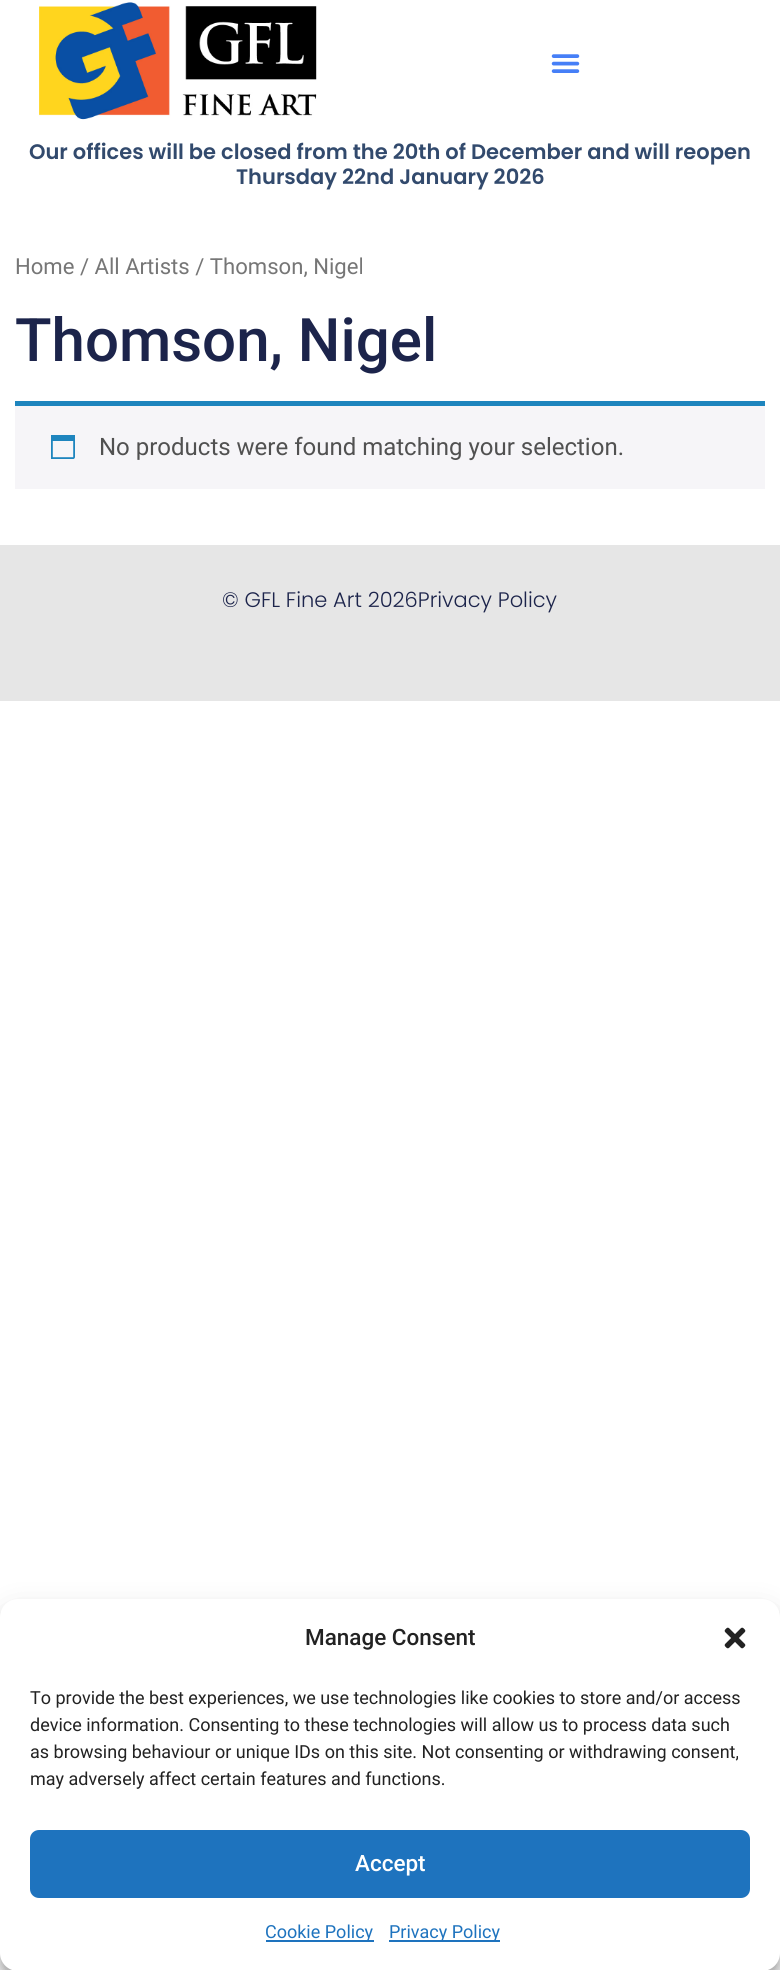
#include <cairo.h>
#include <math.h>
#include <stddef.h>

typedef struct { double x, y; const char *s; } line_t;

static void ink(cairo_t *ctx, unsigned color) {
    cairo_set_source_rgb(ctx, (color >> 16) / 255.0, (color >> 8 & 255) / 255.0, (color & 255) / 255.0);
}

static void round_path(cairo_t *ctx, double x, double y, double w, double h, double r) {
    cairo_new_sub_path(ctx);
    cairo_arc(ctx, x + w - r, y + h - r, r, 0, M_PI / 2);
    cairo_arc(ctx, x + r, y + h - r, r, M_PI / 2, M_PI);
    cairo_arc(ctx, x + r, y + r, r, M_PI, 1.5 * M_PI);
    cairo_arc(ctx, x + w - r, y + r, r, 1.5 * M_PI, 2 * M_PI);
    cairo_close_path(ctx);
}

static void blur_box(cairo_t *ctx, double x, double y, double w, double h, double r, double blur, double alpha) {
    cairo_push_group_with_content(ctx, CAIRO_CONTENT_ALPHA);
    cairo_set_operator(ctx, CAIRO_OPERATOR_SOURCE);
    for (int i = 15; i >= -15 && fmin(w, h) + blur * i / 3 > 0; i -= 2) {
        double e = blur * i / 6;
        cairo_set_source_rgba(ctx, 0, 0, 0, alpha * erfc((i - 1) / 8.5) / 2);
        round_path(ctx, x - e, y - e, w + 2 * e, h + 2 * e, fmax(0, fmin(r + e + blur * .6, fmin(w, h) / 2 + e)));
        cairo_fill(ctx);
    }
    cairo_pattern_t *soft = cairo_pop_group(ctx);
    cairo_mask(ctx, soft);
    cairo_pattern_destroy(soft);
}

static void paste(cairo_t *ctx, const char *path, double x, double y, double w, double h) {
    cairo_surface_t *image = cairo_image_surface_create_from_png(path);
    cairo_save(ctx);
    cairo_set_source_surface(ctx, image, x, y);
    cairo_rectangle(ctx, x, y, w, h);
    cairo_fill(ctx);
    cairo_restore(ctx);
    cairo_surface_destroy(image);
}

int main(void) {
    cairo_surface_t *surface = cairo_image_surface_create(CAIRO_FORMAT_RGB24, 780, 1970);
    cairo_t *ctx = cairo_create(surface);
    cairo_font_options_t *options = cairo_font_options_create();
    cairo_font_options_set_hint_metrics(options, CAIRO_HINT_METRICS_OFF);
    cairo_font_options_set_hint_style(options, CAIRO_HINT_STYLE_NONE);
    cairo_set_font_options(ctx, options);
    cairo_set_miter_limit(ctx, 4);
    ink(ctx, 0xFFFFFF);
    cairo_paint(ctx);
    paste(ctx, "media/1.png", 39, 2, 278, 118);
    paste(ctx, "media/2.png", 551, 54, 29, 19);
    cairo_select_font_face(ctx, "Poppins SemiBold", CAIRO_FONT_SLANT_NORMAL, CAIRO_FONT_WEIGHT_NORMAL);
    cairo_set_font_size(ctx, 21);
    ink(ctx, 0x324A6D);
    cairo_move_to(ctx, 29, 159);
    cairo_show_text(ctx, "Our offices will be closed from the 20th of December and will reopen");
    cairo_move_to(ctx, 236, 184);
    cairo_show_text(ctx, "Thursday 22nd January 2026");
    cairo_select_font_face(ctx, "Roboto", CAIRO_FONT_SLANT_NORMAL, CAIRO_FONT_WEIGHT_NORMAL);
    cairo_set_font_size(ctx, 22.1);
    ink(ctx, 0x767676);
    cairo_move_to(ctx, 15, 274);
    cairo_show_text(ctx, "Home / All Artists / Thomson, Nigel");
    cairo_select_font_face(ctx, "Roboto Medium", CAIRO_FONT_SLANT_NORMAL, CAIRO_FONT_WEIGHT_NORMAL);
    cairo_set_font_size(ctx, 60);
    ink(ctx, 0x1C244B);
    cairo_move_to(ctx, 15, 361);
    cairo_show_text(ctx, "Thomson, Nigel");
    ink(ctx, 0xF6F5F8);
    cairo_rectangle(ctx, 15, 406, 750, 83);
    cairo_fill(ctx);
    ink(ctx, 0x1E85BE);
    cairo_rectangle(ctx, 15, 401, 750, 5);
    cairo_fill(ctx);
    paste(ctx, "media/3.png", 51, 435, 24, 24);
    cairo_select_font_face(ctx, "Roboto", CAIRO_FONT_SLANT_NORMAL, CAIRO_FONT_WEIGHT_NORMAL);
    cairo_set_font_size(ctx, 24);
    ink(ctx, 0x515151);
    cairo_move_to(ctx, 99, 455);
    cairo_show_text(ctx, "No products were found matching your selection.");
    ink(ctx, 0xE6E6E6);
    cairo_rectangle(ctx, 0, 545, 780, 156);
    cairo_fill(ctx);
    cairo_select_font_face(ctx, "Poppins Light", CAIRO_FONT_SLANT_NORMAL, CAIRO_FONT_WEIGHT_NORMAL);
    cairo_set_font_size(ctx, 21);
    ink(ctx, 0x1C244B);
    cairo_move_to(ctx, 222, 607);
    cairo_show_text(ctx, "© GFL Fine Art 2026Privacy Policy");
    ink(ctx, 0x000000);
    blur_box(ctx, 0, 1608, 780, 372, 18, 4.5, 0.23);
    blur_box(ctx, 0, 1614, 780, 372, 18, 15, 0.19);
    ink(ctx, 0xFFFFFF);
    round_path(ctx, 0, 1599, 780, 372, 18);
    cairo_fill(ctx);
    cairo_select_font_face(ctx, "Roboto Medium", CAIRO_FONT_SLANT_NORMAL, CAIRO_FONT_WEIGHT_NORMAL);
    cairo_set_font_size(ctx, 22.5);
    ink(ctx, 0x222222);
    cairo_move_to(ctx, 305, 1645);
    cairo_show_text(ctx, "Manage Consent");
    paste(ctx, "media/4.png", 724, 1627, 22, 22);
    cairo_select_font_face(ctx, "Roboto", CAIRO_FONT_SLANT_NORMAL, CAIRO_FONT_WEIGHT_NORMAL);
    cairo_set_font_size(ctx, 18);
    {
        static const line_t items[] = {
            {30, 1704, "To provide the best experiences, we use technologies like cookies to store and/or access"},
            {30, 1731, "device information. Consenting to these technologies will allow us to process data such"},
            {30, 1758, "as browsing behaviour or unique IDs on this site. Not consenting or withdrawing consent,"},
            {30, 1785, "may adversely affect certain features and functions."},
        };
        for (size_t i = 0; i < sizeof items / sizeof *items; i++) {
            cairo_move_to(ctx, items[i].x, items[i].y);
            cairo_show_text(ctx, items[i].s);
        }
    }
    ink(ctx, 0x1E73BE);
    round_path(ctx, 31, 1831, 718, 66, 8);
    cairo_fill_preserve(ctx);
    cairo_stroke(ctx);
    cairo_select_font_face(ctx, "Roboto Medium", CAIRO_FONT_SLANT_NORMAL, CAIRO_FONT_WEIGHT_NORMAL);
    cairo_set_font_size(ctx, 22.5);
    ink(ctx, 0xFFFFFF);
    cairo_move_to(ctx, 355, 1871);
    cairo_show_text(ctx, "Accept");
    ink(ctx, 0x1E73BE);
    cairo_rectangle(ctx, 266, 1940, 108, 2);
    cairo_fill(ctx);
    cairo_select_font_face(ctx, "Roboto", CAIRO_FONT_SLANT_NORMAL, CAIRO_FONT_WEIGHT_NORMAL);
    cairo_set_font_size(ctx, 18);
    cairo_move_to(ctx, 265, 1938);
    cairo_show_text(ctx, "Cookie Policy");
    cairo_rectangle(ctx, 389, 1940, 111, 2);
    cairo_fill(ctx);
    cairo_move_to(ctx, 389, 1938);
    cairo_show_text(ctx, "Privacy Policy");
    cairo_surface_write_to_png(surface, "image.png");
    cairo_font_options_destroy(options);
    cairo_destroy(ctx);
    cairo_surface_destroy(surface);
    return 0;
}
